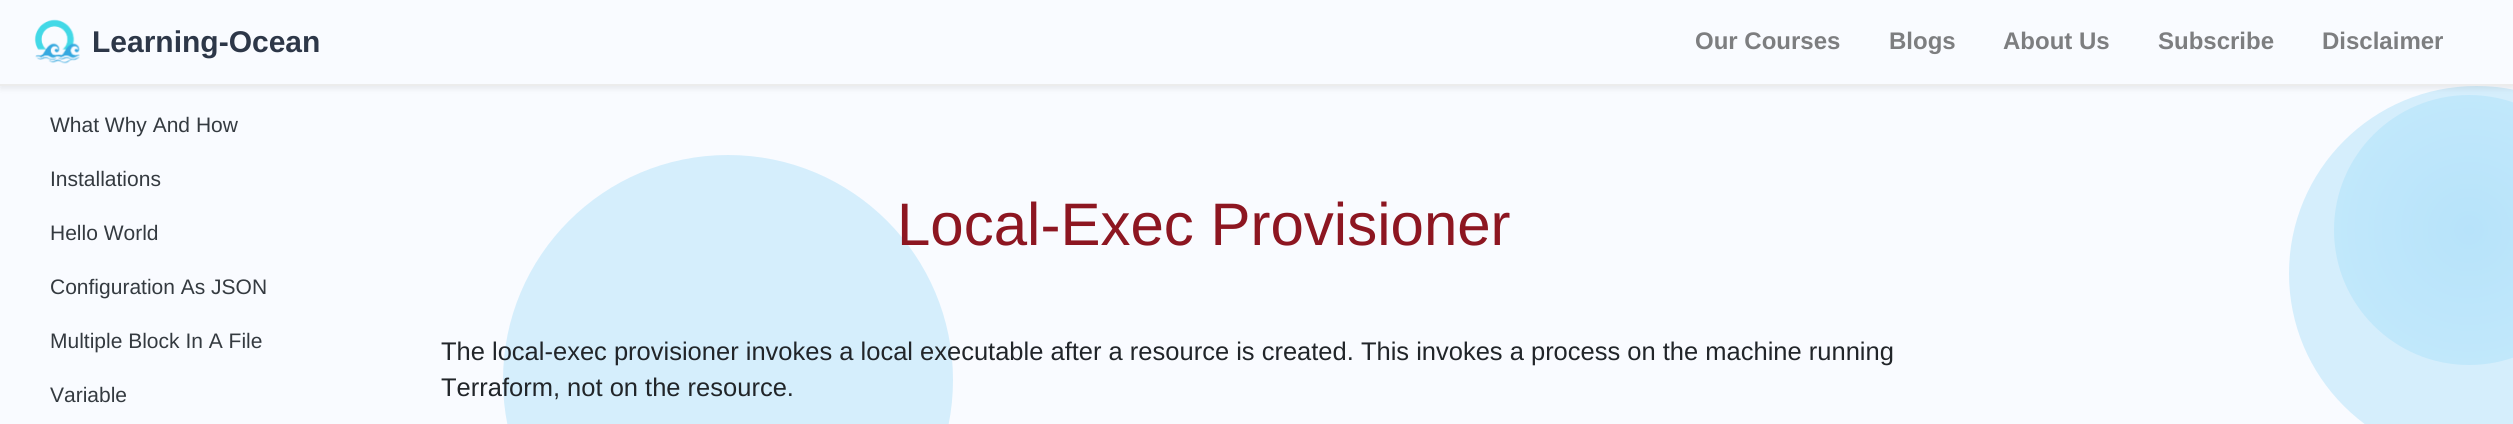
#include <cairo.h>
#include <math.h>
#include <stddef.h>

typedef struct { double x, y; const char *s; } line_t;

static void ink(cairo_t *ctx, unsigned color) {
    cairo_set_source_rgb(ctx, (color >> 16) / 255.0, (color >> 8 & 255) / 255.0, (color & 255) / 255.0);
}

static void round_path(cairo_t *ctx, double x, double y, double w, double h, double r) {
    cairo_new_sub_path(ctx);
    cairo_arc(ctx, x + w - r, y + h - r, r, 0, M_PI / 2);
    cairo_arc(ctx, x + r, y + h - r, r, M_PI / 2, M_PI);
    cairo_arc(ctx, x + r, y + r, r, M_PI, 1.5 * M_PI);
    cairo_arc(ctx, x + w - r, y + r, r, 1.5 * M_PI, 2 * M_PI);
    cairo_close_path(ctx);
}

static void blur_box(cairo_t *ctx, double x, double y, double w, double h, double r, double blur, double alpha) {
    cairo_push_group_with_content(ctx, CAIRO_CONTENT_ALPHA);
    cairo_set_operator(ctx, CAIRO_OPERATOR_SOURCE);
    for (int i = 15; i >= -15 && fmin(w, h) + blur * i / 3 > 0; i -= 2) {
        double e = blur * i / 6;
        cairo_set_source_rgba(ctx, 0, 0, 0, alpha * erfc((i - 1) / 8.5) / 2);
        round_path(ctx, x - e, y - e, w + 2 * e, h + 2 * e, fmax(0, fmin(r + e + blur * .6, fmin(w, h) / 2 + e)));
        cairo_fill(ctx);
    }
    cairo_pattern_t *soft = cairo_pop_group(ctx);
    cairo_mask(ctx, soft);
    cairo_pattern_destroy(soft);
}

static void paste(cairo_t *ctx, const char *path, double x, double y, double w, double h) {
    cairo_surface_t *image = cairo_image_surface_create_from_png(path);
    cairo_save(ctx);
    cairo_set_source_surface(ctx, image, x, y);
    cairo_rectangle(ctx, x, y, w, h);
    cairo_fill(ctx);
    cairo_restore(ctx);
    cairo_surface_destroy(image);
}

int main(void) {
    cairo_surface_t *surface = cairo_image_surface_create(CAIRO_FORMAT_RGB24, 2513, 424);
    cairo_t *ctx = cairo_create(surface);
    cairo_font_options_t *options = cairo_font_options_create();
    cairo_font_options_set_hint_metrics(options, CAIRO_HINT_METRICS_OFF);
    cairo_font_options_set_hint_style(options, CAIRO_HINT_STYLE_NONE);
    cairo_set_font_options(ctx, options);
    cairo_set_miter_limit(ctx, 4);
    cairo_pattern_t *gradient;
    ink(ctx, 0xF9FBFF);
    cairo_paint(ctx);
    ink(ctx, 0xD5EEFC);
    cairo_arc(ctx, 2476.5, 273.5, 187.5, 0, 2 * M_PI);
    cairo_fill(ctx);
    gradient = cairo_pattern_create_radial(2469, 230, 0, 2469, 230, 191);
    cairo_pattern_add_color_stop_rgba(gradient, 0, 0.718, 0.89, 0.98, 1);
    cairo_pattern_add_color_stop_rgba(gradient, 1, 0.773, 0.918, 0.988, 1);
    cairo_set_source(ctx, gradient);
    cairo_pattern_destroy(gradient);
    cairo_arc(ctx, 2469, 230, 135, 0, 2 * M_PI);
    cairo_fill(ctx);
    ink(ctx, 0x000000);
    blur_box(ctx, 0, 3, 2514, 86, 0, 3, 0.07);
    ink(ctx, 0xF9FBFF);
    cairo_rectangle(ctx, 0, 0, 2513, 84);
    cairo_fill(ctx);
    ink(ctx, 0xECECEC);
    cairo_rectangle(ctx, 0, 84, 2513, 2);
    cairo_fill(ctx);
    paste(ctx, "media/1.png", 34, 19, 46, 45);
    cairo_select_font_face(ctx, "Liberation Sans", CAIRO_FONT_SLANT_NORMAL, CAIRO_FONT_WEIGHT_BOLD);
    cairo_set_font_size(ctx, 30);
    ink(ctx, 0x2D3748);
    cairo_move_to(ctx, 92, 52);
    cairo_show_text(ctx, "Learning-Ocean");
    cairo_set_font_size(ctx, 24);
    ink(ctx, 0x7D7E80);
    {
        static const line_t items[] = {
            {1695, 49, "Our Courses"},
            {1889, 49, "Blogs"},
            {2003, 49, "About Us"},
            {2158, 49, "Subscribe"},
            {2322, 49, "Disclaimer"},
        };
        for (size_t i = 0; i < sizeof items / sizeof *items; i++) {
            cairo_move_to(ctx, items[i].x, items[i].y);
            cairo_show_text(ctx, items[i].s);
        }
    }
    ink(ctx, 0xD5EEFC);
    cairo_new_path(ctx);
    cairo_arc(ctx, 728, 380, 225, 0, 2 * M_PI);
    cairo_fill(ctx);
    cairo_select_font_face(ctx, "Liberation Sans", CAIRO_FONT_SLANT_NORMAL, CAIRO_FONT_WEIGHT_NORMAL);
    cairo_set_font_size(ctx, 21);
    ink(ctx, 0x343A40);
    {
        static const line_t items[] = {
            {50, 132, "What Why And How"},
            {50, 186, "Installations"},
            {50, 240, "Hello World"},
            {50, 294, "Configuration As JSON"},
            {50, 348, "Multiple Block In A File"},
            {50, 402, "Variable"},
        };
        for (size_t i = 0; i < sizeof items / sizeof *items; i++) {
            cairo_move_to(ctx, items[i].x, items[i].y);
            cairo_show_text(ctx, items[i].s);
        }
    }
    cairo_set_font_size(ctx, 60);
    ink(ctx, 0x8D1621);
    cairo_move_to(ctx, 897, 245);
    cairo_show_text(ctx, "Local-Exec Provisioner");
    cairo_set_font_size(ctx, 25.5);
    ink(ctx, 0x212529);
    cairo_move_to(ctx, 441, 360);
    cairo_show_text(ctx, "The local-exec provisioner invokes a local executable after a resource is created. This invokes a process on the machine running");
    cairo_move_to(ctx, 441, 396);
    cairo_show_text(ctx, "Terraform, not on the resource.");
    cairo_surface_write_to_png(surface, "image.png");
    cairo_font_options_destroy(options);
    cairo_destroy(ctx);
    cairo_surface_destroy(surface);
    return 0;
}
